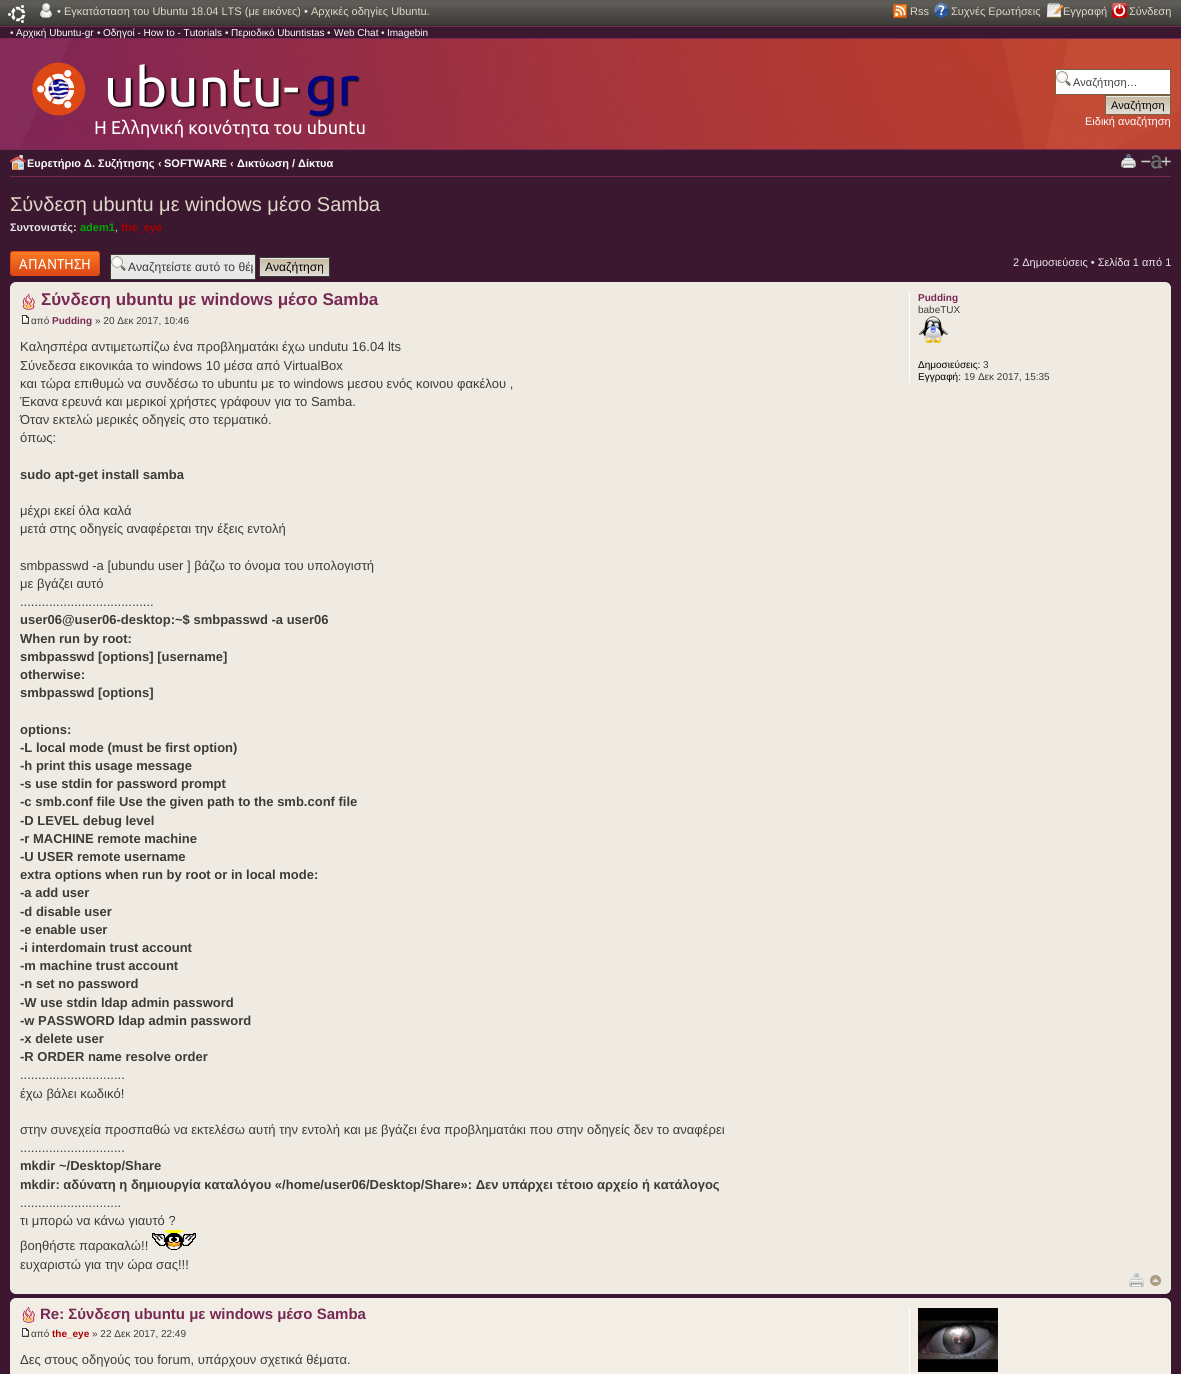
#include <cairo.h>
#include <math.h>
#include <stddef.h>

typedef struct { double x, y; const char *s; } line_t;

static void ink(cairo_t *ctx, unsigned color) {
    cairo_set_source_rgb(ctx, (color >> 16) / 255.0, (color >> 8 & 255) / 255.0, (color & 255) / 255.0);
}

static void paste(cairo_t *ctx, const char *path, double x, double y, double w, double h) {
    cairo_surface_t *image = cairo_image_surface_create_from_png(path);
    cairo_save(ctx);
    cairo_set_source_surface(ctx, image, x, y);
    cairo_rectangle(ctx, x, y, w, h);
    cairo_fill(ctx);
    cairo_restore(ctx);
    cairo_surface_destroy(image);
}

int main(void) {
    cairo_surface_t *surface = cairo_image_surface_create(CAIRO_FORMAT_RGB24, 1181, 1374);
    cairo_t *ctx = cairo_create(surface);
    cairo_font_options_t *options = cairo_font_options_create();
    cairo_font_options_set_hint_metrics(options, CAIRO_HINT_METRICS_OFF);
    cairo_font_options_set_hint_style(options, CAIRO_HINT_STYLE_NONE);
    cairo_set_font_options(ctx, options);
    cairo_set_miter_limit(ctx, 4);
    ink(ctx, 0x3B1830);
    cairo_paint(ctx);
    ink(ctx, 0x5C5B56);
    cairo_rectangle(ctx, 0, 0, 1181, 6);
    cairo_fill(ctx);
    paste(ctx, "media/1.png", 0, 6, 1181, 20);
    paste(ctx, "media/2.png", 8, 5, 18, 18);
    paste(ctx, "media/3.png", 40, 3, 12, 15);
    cairo_select_font_face(ctx, "Liberation Sans", CAIRO_FONT_SLANT_NORMAL, CAIRO_FONT_WEIGHT_NORMAL);
    cairo_set_font_size(ctx, 11);
    ink(ctx, 0xE9E9E9);
    cairo_move_to(ctx, 57, 15);
    cairo_show_text(ctx, "•");
    ink(ctx, 0xDFD8C8);
    cairo_move_to(ctx, 64, 15);
    cairo_show_text(ctx, "Εγκατάσταση του Ubuntu 18.04 LTS (με εικόνες)");
    ink(ctx, 0xE9E9E9);
    cairo_move_to(ctx, 304, 15);
    cairo_show_text(ctx, "•");
    ink(ctx, 0xDFD8C8);
    cairo_move_to(ctx, 311, 15);
    cairo_show_text(ctx, "Αρχικές οδηγίες Ubuntu.");
    paste(ctx, "media/4.png", 893, 4, 14, 14);
    cairo_move_to(ctx, 910, 15);
    cairo_show_text(ctx, "Rss");
    paste(ctx, "media/5.png", 934, 3, 15, 15);
    cairo_move_to(ctx, 951, 15);
    cairo_show_text(ctx, "Συχνές Ερωτήσεις");
    paste(ctx, "media/6.png", 1046, 3, 18, 15);
    cairo_move_to(ctx, 1063, 15);
    cairo_show_text(ctx, "Εγγραφή");
    paste(ctx, "media/7.png", 1112, 3, 15, 15);
    cairo_move_to(ctx, 1129, 15);
    cairo_show_text(ctx, "Σύνδεση");
    ink(ctx, 0x772953);
    cairo_rectangle(ctx, 0, 26, 1181, 1);
    cairo_fill(ctx);
    cairo_set_font_size(ctx, 10);
    ink(ctx, 0xE9E9E9);
    cairo_move_to(ctx, 10, 36);
    cairo_show_text(ctx, "•");
    ink(ctx, 0x772953);
    cairo_rectangle(ctx, 0, 38, 1181, 1);
    cairo_fill(ctx);
    ink(ctx, 0xFFFFFF);
    cairo_move_to(ctx, 16, 36);
    cairo_show_text(ctx, "Αρχική Ubuntu-gr");
    ink(ctx, 0xE9E9E9);
    cairo_move_to(ctx, 97, 36);
    cairo_show_text(ctx, "•");
    ink(ctx, 0xFFFFFF);
    cairo_move_to(ctx, 103, 36);
    cairo_show_text(ctx, "Οδηγοί - How to - Tutorials");
    ink(ctx, 0xE9E9E9);
    cairo_move_to(ctx, 225, 36);
    cairo_show_text(ctx, "•");
    ink(ctx, 0xFFFFFF);
    cairo_move_to(ctx, 231, 36);
    cairo_show_text(ctx, "Περιοδικό Ubuntistas");
    ink(ctx, 0xE9E9E9);
    cairo_move_to(ctx, 327, 36);
    cairo_show_text(ctx, "•");
    ink(ctx, 0xFFFFFF);
    cairo_move_to(ctx, 334, 36);
    cairo_show_text(ctx, "Web Chat");
    ink(ctx, 0xE9E9E9);
    cairo_move_to(ctx, 381, 36);
    cairo_show_text(ctx, "•");
    ink(ctx, 0xFFFFFF);
    cairo_move_to(ctx, 387, 36);
    cairo_show_text(ctx, "Imagebin");
    paste(ctx, "media/8.png", 0, 39, 1181, 110);
    paste(ctx, "media/9.png", 32, 62, 333, 76);
    cairo_rectangle(ctx, 1056, 70, 114, 24);
    cairo_fill(ctx);
    paste(ctx, "media/10.png", 1056, 71, 15, 15);
    cairo_rectangle(ctx, 1055.5, 69.5, 115, 25);
    ink(ctx, 0x7A6143);
    cairo_set_line_width(ctx, 1);
    cairo_stroke(ctx);
    cairo_save(ctx);
    cairo_rectangle(ctx, 1073, 76, 95, 12);
    cairo_clip(ctx);
    cairo_set_font_size(ctx, 11);
    ink(ctx, 0x3C3B37);
    cairo_move_to(ctx, 1073, 86);
    cairo_show_text(ctx, "Αναζήτηση…");
    cairo_restore(ctx);
    ink(ctx, 0xE9E9E9);
    cairo_rectangle(ctx, 1106, 96, 64, 1);
    cairo_fill(ctx);
    paste(ctx, "media/11.png", 1106, 97, 64, 17);
    cairo_rectangle(ctx, 1105.5, 95.5, 65, 19);
    ink(ctx, 0x7A6143);
    cairo_stroke(ctx);
    cairo_set_font_size(ctx, 11);
    ink(ctx, 0x000000);
    cairo_move_to(ctx, 1111, 109);
    cairo_show_text(ctx, "Αναζήτηση");
    ink(ctx, 0xFFFFFF);
    cairo_move_to(ctx, 1085, 125);
    cairo_show_text(ctx, "Ειδική αναζήτηση");
    ink(ctx, 0x772953);
    cairo_rectangle(ctx, 0, 149, 1181, 1);
    cairo_fill(ctx);
    cairo_rectangle(ctx, 10, 176, 1161, 1);
    cairo_fill(ctx);
    paste(ctx, "media/12.png", 10, 155, 16, 15);
    cairo_select_font_face(ctx, "Liberation Sans", CAIRO_FONT_SLANT_NORMAL, CAIRO_FONT_WEIGHT_BOLD);
    ink(ctx, 0xFFFFFF);
    cairo_move_to(ctx, 27, 167);
    cairo_show_text(ctx, "Ευρετήριο Δ. Συζήτησης");
    ink(ctx, 0xE9E9E9);
    cairo_move_to(ctx, 158, 167);
    cairo_show_text(ctx, "‹");
    ink(ctx, 0xFFFFFF);
    cairo_move_to(ctx, 164, 167);
    cairo_show_text(ctx, "SOFTWARE");
    ink(ctx, 0xE9E9E9);
    cairo_move_to(ctx, 230, 167);
    cairo_show_text(ctx, "‹");
    ink(ctx, 0xFFFFFF);
    cairo_move_to(ctx, 237, 167);
    cairo_show_text(ctx, "Δικτύωση / Δίκτυα");
    paste(ctx, "media/13.png", 1121, 154, 15, 14);
    paste(ctx, "media/14.png", 1141, 155, 30, 14);
    cairo_select_font_face(ctx, "Liberation Sans", CAIRO_FONT_SLANT_NORMAL, CAIRO_FONT_WEIGHT_NORMAL);
    cairo_set_font_size(ctx, 20);
    ink(ctx, 0xDFD8C8);
    cairo_move_to(ctx, 10, 211);
    cairo_show_text(ctx, "Σύνδεση ubuntu με windows μέσο Samba");
    cairo_select_font_face(ctx, "Liberation Sans", CAIRO_FONT_SLANT_NORMAL, CAIRO_FONT_WEIGHT_BOLD);
    cairo_set_font_size(ctx, 11);
    ink(ctx, 0xE9E9E9);
    cairo_move_to(ctx, 10, 231);
    cairo_show_text(ctx, "Συντονιστές:");
    ink(ctx, 0x00AA00);
    cairo_move_to(ctx, 80, 231);
    cairo_show_text(ctx, "adem1");
    cairo_select_font_face(ctx, "Liberation Sans", CAIRO_FONT_SLANT_NORMAL, CAIRO_FONT_WEIGHT_NORMAL);
    ink(ctx, 0xE9E9E9);
    cairo_move_to(ctx, 115, 231);
    cairo_show_text(ctx, ",");
    cairo_select_font_face(ctx, "Liberation Sans", CAIRO_FONT_SLANT_NORMAL, CAIRO_FONT_WEIGHT_BOLD);
    ink(ctx, 0xAA0000);
    cairo_move_to(ctx, 121, 231);
    cairo_show_text(ctx, "the_eye");
    paste(ctx, "media/15.png", 10, 251, 90, 25);
    ink(ctx, 0xE9E9E9);
    cairo_rectangle(ctx, 111, 255, 144, 24);
    cairo_fill(ctx);
    paste(ctx, "media/16.png", 111, 256, 15, 15);
    cairo_rectangle(ctx, 110.5, 254.5, 145, 25);
    ink(ctx, 0x3C3B37);
    cairo_stroke(ctx);
    cairo_save(ctx);
    cairo_rectangle(ctx, 128, 260, 125, 14);
    cairo_clip(ctx);
    cairo_select_font_face(ctx, "Liberation Sans", CAIRO_FONT_SLANT_NORMAL, CAIRO_FONT_WEIGHT_NORMAL);
    cairo_set_font_size(ctx, 12.1);
    cairo_move_to(ctx, 128, 271);
    cairo_show_text(ctx, "Αναζητείστε αυτό το θέμ");
    cairo_restore(ctx);
    ink(ctx, 0xE9E9E9);
    cairo_rectangle(ctx, 260, 258, 69, 1);
    cairo_fill(ctx);
    paste(ctx, "media/17.png", 260, 259, 69, 17);
    cairo_rectangle(ctx, 259.5, 257.5, 70, 19);
    ink(ctx, 0x3C3B37);
    cairo_stroke(ctx);
    cairo_select_font_face(ctx, "Liberation Sans", CAIRO_FONT_SLANT_NORMAL, CAIRO_FONT_WEIGHT_NORMAL);
    cairo_set_font_size(ctx, 12.1);
    ink(ctx, 0x000000);
    cairo_move_to(ctx, 265, 271);
    cairo_show_text(ctx, "Αναζήτηση");
    cairo_set_font_size(ctx, 11);
    ink(ctx, 0xE9E9E9);
    cairo_move_to(ctx, 1013, 266);
    cairo_show_text(ctx, "2 Δημοσιεύσεις • Σελίδα 1 από 1");
    ink(ctx, 0xF0EBE2);
    cairo_rectangle(ctx, 10, 282, 1161, 1012);
    cairo_fill(ctx);
    paste(ctx, "media/18.png", 10, 282, 6, 5);
    paste(ctx, "media/19.png", 1165, 282, 6, 5);
    paste(ctx, "media/20.png", 22, 294, 13, 16);
    cairo_select_font_face(ctx, "Liberation Sans", CAIRO_FONT_SLANT_NORMAL, CAIRO_FONT_WEIGHT_BOLD);
    cairo_set_font_size(ctx, 17);
    ink(ctx, 0x772953);
    cairo_move_to(ctx, 41, 305);
    cairo_show_text(ctx, "Σύνδεση ubuntu με windows μέσο Samba");
    paste(ctx, "media/21.png", 22, 315, 7, 9);
    cairo_select_font_face(ctx, "Liberation Sans", CAIRO_FONT_SLANT_NORMAL, CAIRO_FONT_WEIGHT_NORMAL);
    cairo_set_font_size(ctx, 10);
    ink(ctx, 0x3C3B37);
    cairo_move_to(ctx, 31, 324);
    cairo_show_text(ctx, "από");
    cairo_select_font_face(ctx, "Liberation Sans", CAIRO_FONT_SLANT_NORMAL, CAIRO_FONT_WEIGHT_BOLD);
    ink(ctx, 0x772953);
    cairo_move_to(ctx, 52, 324);
    cairo_show_text(ctx, "Pudding");
    cairo_select_font_face(ctx, "Liberation Sans", CAIRO_FONT_SLANT_NORMAL, CAIRO_FONT_WEIGHT_NORMAL);
    ink(ctx, 0x3C3B37);
    cairo_move_to(ctx, 95, 324);
    cairo_show_text(ctx, "» 20 Δεκ 2017, 10:46");
    cairo_set_font_size(ctx, 13);
    {
        static const line_t items[] = {
            {20, 351, "Καλησπέρα αντιμετωπίζω ένα προβληματάκι έχω undutu 16.04 lts"},
            {20, 370, "Σύνεδεσα εικονικάa το windows 10 μέσα από VirtualBox"},
            {20, 388, "και τώρα επιθυμώ να συνδέσω το ubuntu με το windows μεσου ενός κοινου φακέλου ,"},
            {20, 406, "Έκανα ερευνά και μερικοί χρήστες γράφουν για το Samba."},
            {20, 424, "Όταν εκτελώ μερικές οδηγείς στο τερματικό."},
            {20, 442, "όπως:"},
        };
        for (size_t i = 0; i < sizeof items / sizeof *items; i++) {
            cairo_move_to(ctx, items[i].x, items[i].y);
            cairo_show_text(ctx, items[i].s);
        }
    }
    cairo_select_font_face(ctx, "Liberation Sans", CAIRO_FONT_SLANT_NORMAL, CAIRO_FONT_WEIGHT_BOLD);
    cairo_move_to(ctx, 20, 479);
    cairo_show_text(ctx, "sudo apt-get install samba");
    cairo_select_font_face(ctx, "Liberation Sans", CAIRO_FONT_SLANT_NORMAL, CAIRO_FONT_WEIGHT_NORMAL);
    {
        static const line_t items[] = {
            {20, 515, "μέχρι εκεί όλα καλά"},
            {20, 533, "μετά στης οδηγείς αναφέρεται την έξεις εντολή"},
            {20, 570, "smbpasswd -a [ubundu user ] βάζω το όνομα του υπολογιστή"},
            {20, 588, "με βγάζει αυτό"},
            {20, 606, "....................................."},
        };
        for (size_t i = 0; i < sizeof items / sizeof *items; i++) {
            cairo_move_to(ctx, items[i].x, items[i].y);
            cairo_show_text(ctx, items[i].s);
        }
    }
    cairo_select_font_face(ctx, "Liberation Sans", CAIRO_FONT_SLANT_NORMAL, CAIRO_FONT_WEIGHT_BOLD);
    {
        static const line_t items[] = {
            {20, 624, "user06@user06-desktop:~$ smbpasswd -a user06"},
            {20, 643, "When run by root:"},
            {20, 661, "smbpasswd [options] [username]"},
            {20, 679, "otherwise:"},
            {20, 697, "smbpasswd [options]"},
            {20, 734, "options:"},
            {20, 752, "-L local mode (must be first option)"},
            {20, 770, "-h print this usage message"},
            {20, 788, "-s use stdin for password prompt"},
            {20, 806, "-c smb.conf file Use the given path to the smb.conf file"},
            {20, 825, "-D LEVEL debug level"},
            {20, 843, "-r MACHINE remote machine"},
            {20, 861, "-U USER remote username"},
            {20, 879, "extra options when run by root or in local mode:"},
            {20, 897, "-a add user"},
            {20, 916, "-d disable user"},
            {20, 934, "-e enable user"},
            {20, 952, "-i interdomain trust account"},
            {20, 970, "-m machine trust account"},
            {20, 988, "-n set no password"},
            {20, 1007, "-W use stdin ldap admin password"},
            {20, 1025, "-w PASSWORD ldap admin password"},
            {20, 1043, "-x delete user"},
            {20, 1061, "-R ORDER name resolve order"},
        };
        for (size_t i = 0; i < sizeof items / sizeof *items; i++) {
            cairo_move_to(ctx, items[i].x, items[i].y);
            cairo_show_text(ctx, items[i].s);
        }
    }
    cairo_select_font_face(ctx, "Liberation Sans", CAIRO_FONT_SLANT_NORMAL, CAIRO_FONT_WEIGHT_NORMAL);
    {
        static const line_t items[] = {
            {20, 1079, "............................."},
            {20, 1098, "έχω βάλει κωδικό!"},
            {20, 1134, "στην συνεχεία προσπαθώ να εκτελέσω αυτή την εντολή και με βγάζει ένα προβληματάκι που στην οδηγείς δεν το αναφέρει"},
            {20, 1152, "............................."},
        };
        for (size_t i = 0; i < sizeof items / sizeof *items; i++) {
            cairo_move_to(ctx, items[i].x, items[i].y);
            cairo_show_text(ctx, items[i].s);
        }
    }
    cairo_select_font_face(ctx, "Liberation Sans", CAIRO_FONT_SLANT_NORMAL, CAIRO_FONT_WEIGHT_BOLD);
    cairo_move_to(ctx, 20, 1170);
    cairo_show_text(ctx, "mkdir ~/Desktop/Share");
    cairo_move_to(ctx, 20, 1189);
    cairo_show_text(ctx, "mkdir: αδύνατη η δημιουργία καταλόγου «/home/user06/Desktop/Share»: Δεν υπάρχει τέτοιο αρχείο ή κατάλογος");
    cairo_select_font_face(ctx, "Liberation Sans", CAIRO_FONT_SLANT_NORMAL, CAIRO_FONT_WEIGHT_NORMAL);
    {
        static const line_t items[] = {
            {20, 1207, "............................"},
            {20, 1225, "τι μπορώ να κάνω γιαυτό ?"},
            {20, 1250, "βοηθήστε παρακαλώ!!"},
        };
        for (size_t i = 0; i < sizeof items / sizeof *items; i++) {
            cairo_move_to(ctx, items[i].x, items[i].y);
            cairo_show_text(ctx, items[i].s);
        }
    }
    paste(ctx, "media/22.png", 152, 1230, 44, 20);
    cairo_move_to(ctx, 20, 1269);
    cairo_show_text(ctx, "ευχαριστώ για την ώρα σας!!!");
    ink(ctx, 0xFFFFFF);
    cairo_rectangle(ctx, 909, 292, 1, 91);
    cairo_fill(ctx);
    cairo_select_font_face(ctx, "Liberation Sans", CAIRO_FONT_SLANT_NORMAL, CAIRO_FONT_WEIGHT_BOLD);
    cairo_set_font_size(ctx, 10);
    ink(ctx, 0x772953);
    cairo_move_to(ctx, 918, 301);
    cairo_show_text(ctx, "Pudding");
    cairo_select_font_face(ctx, "Liberation Sans", CAIRO_FONT_SLANT_NORMAL, CAIRO_FONT_WEIGHT_NORMAL);
    ink(ctx, 0x3C3B37);
    cairo_move_to(ctx, 918, 313);
    cairo_show_text(ctx, "babeTUX");
    paste(ctx, "media/23.png", 919, 316, 29, 27);
    ink(ctx, 0x000000);
    cairo_move_to(ctx, 918, 368);
    cairo_show_text(ctx, "Δημοσιεύσεις:");
    ink(ctx, 0x3C3B37);
    cairo_move_to(ctx, 983, 368);
    cairo_show_text(ctx, "3");
    ink(ctx, 0x000000);
    cairo_move_to(ctx, 918, 380);
    cairo_show_text(ctx, "Εγγραφή:");
    ink(ctx, 0x3C3B37);
    cairo_move_to(ctx, 964, 380);
    cairo_show_text(ctx, "19 Δεκ 2017, 15:35");
    paste(ctx, "media/24.png", 1129, 1273, 15, 14);
    paste(ctx, "media/25.png", 1150, 1275, 11, 11);
    paste(ctx, "media/26.png", 10, 1289, 5, 5);
    paste(ctx, "media/27.png", 1166, 1289, 5, 5);
    ink(ctx, 0xF2EEE6);
    cairo_rectangle(ctx, 10, 1298, 1161, 76);
    cairo_fill(ctx);
    paste(ctx, "media/28.png", 10, 1298, 6, 5);
    paste(ctx, "media/29.png", 1165, 1298, 6, 5);
    paste(ctx, "media/30.png", 22, 1307, 13, 16);
    cairo_select_font_face(ctx, "Liberation Sans", CAIRO_FONT_SLANT_NORMAL, CAIRO_FONT_WEIGHT_BOLD);
    cairo_set_font_size(ctx, 15);
    ink(ctx, 0x772953);
    cairo_move_to(ctx, 40, 1319);
    cairo_show_text(ctx, "Re: Σύνδεση ubuntu με windows μέσο Samba");
    paste(ctx, "media/31.png", 22, 1328, 7, 9);
    cairo_select_font_face(ctx, "Liberation Sans", CAIRO_FONT_SLANT_NORMAL, CAIRO_FONT_WEIGHT_NORMAL);
    cairo_set_font_size(ctx, 10);
    ink(ctx, 0x3C3B37);
    cairo_move_to(ctx, 31, 1337);
    cairo_show_text(ctx, "από");
    cairo_select_font_face(ctx, "Liberation Sans", CAIRO_FONT_SLANT_NORMAL, CAIRO_FONT_WEIGHT_BOLD);
    ink(ctx, 0xAA0000);
    cairo_move_to(ctx, 52, 1337);
    cairo_show_text(ctx, "the_eye");
    cairo_select_font_face(ctx, "Liberation Sans", CAIRO_FONT_SLANT_NORMAL, CAIRO_FONT_WEIGHT_NORMAL);
    ink(ctx, 0x3C3B37);
    cairo_move_to(ctx, 92, 1337);
    cairo_show_text(ctx, "» 22 Δεκ 2017, 22:49");
    cairo_set_font_size(ctx, 13);
    cairo_move_to(ctx, 20, 1364);
    cairo_show_text(ctx, "Δες στους οδηγούς του forum, υπάρχουν σχετικά θέματα.");
    ink(ctx, 0xFFFFFF);
    cairo_rectangle(ctx, 909, 1308, 1, 66);
    cairo_fill(ctx);
    paste(ctx, "media/32.png", 918, 1308, 80, 64);
    cairo_surface_write_to_png(surface, "image.png");
    cairo_font_options_destroy(options);
    cairo_destroy(ctx);
    cairo_surface_destroy(surface);
    return 0;
}
